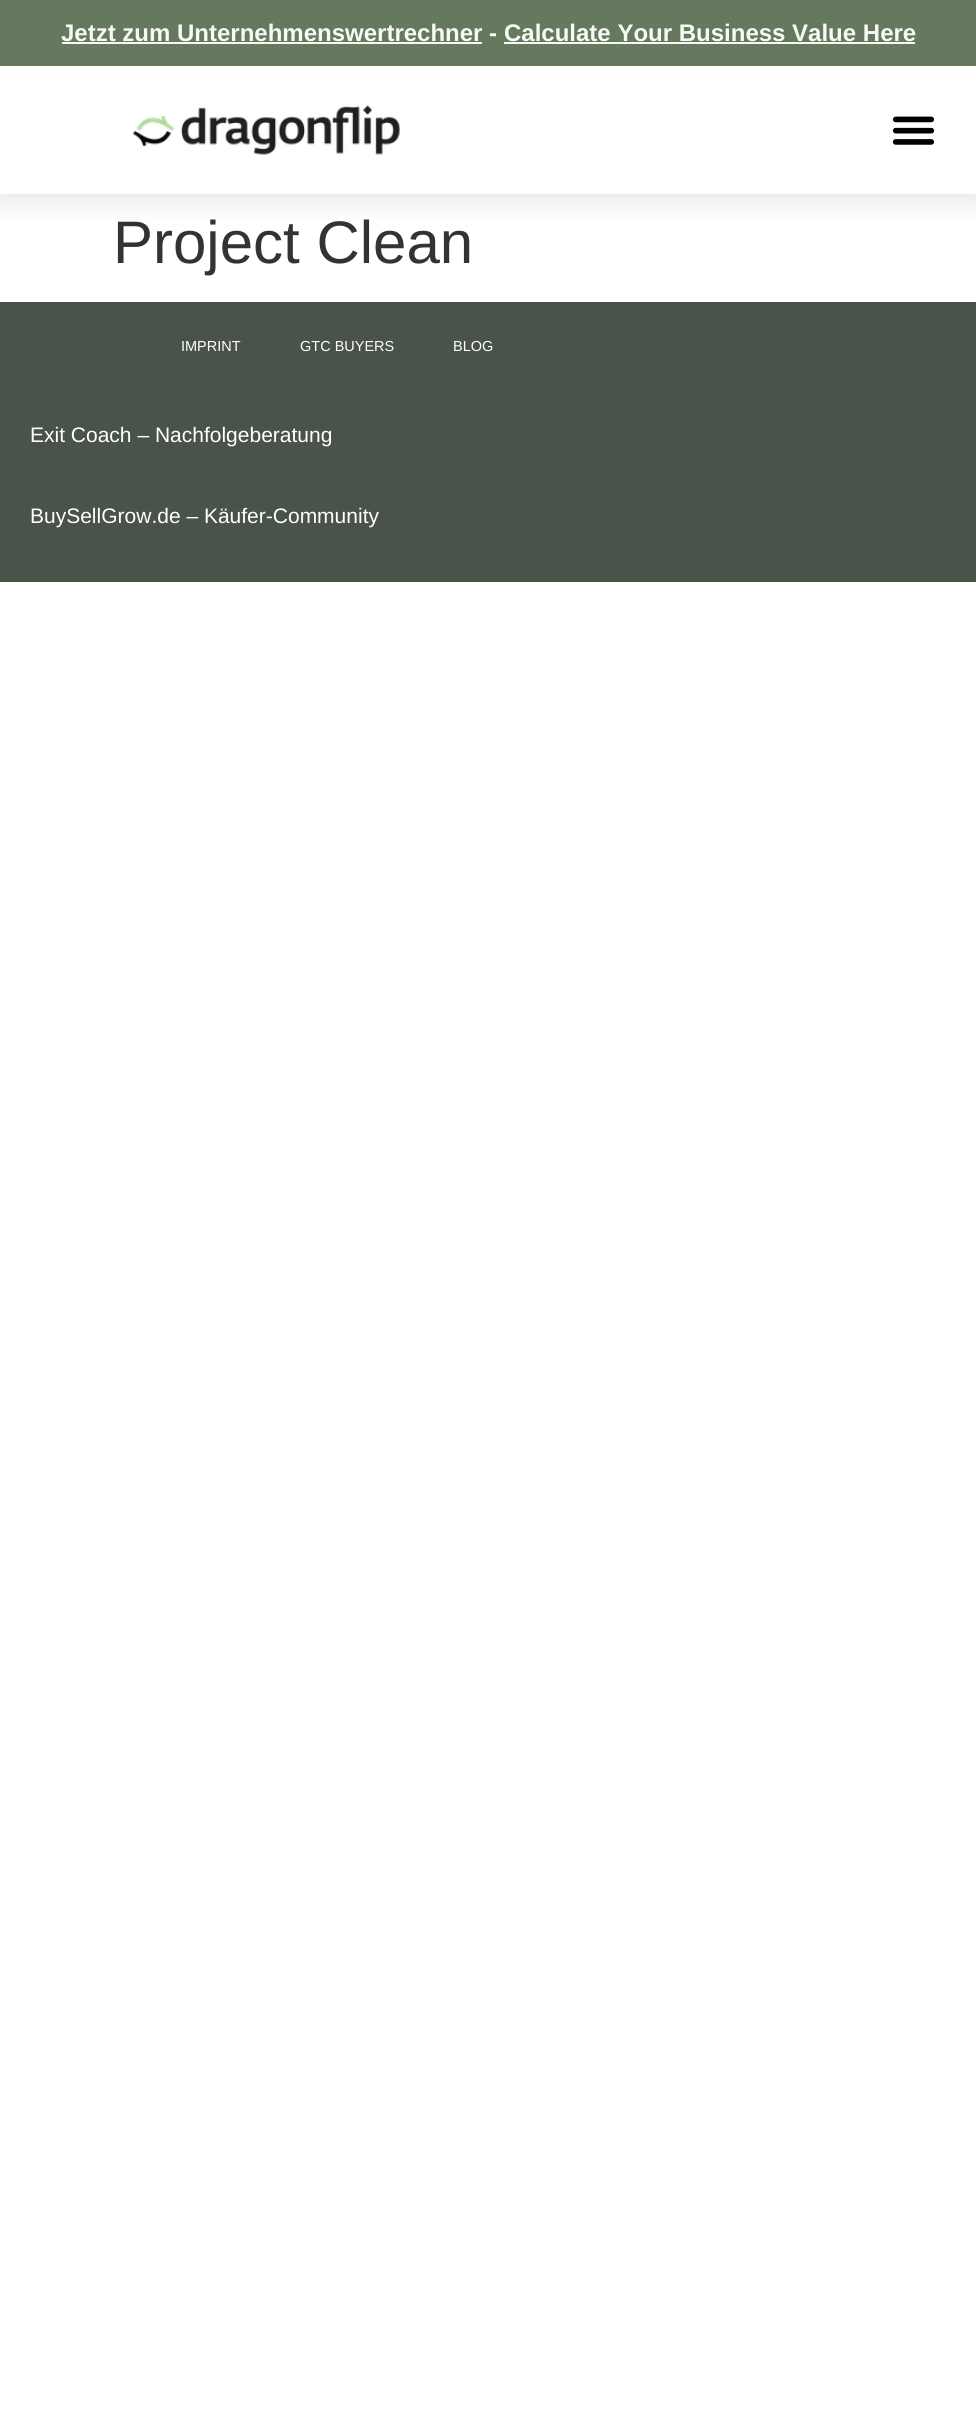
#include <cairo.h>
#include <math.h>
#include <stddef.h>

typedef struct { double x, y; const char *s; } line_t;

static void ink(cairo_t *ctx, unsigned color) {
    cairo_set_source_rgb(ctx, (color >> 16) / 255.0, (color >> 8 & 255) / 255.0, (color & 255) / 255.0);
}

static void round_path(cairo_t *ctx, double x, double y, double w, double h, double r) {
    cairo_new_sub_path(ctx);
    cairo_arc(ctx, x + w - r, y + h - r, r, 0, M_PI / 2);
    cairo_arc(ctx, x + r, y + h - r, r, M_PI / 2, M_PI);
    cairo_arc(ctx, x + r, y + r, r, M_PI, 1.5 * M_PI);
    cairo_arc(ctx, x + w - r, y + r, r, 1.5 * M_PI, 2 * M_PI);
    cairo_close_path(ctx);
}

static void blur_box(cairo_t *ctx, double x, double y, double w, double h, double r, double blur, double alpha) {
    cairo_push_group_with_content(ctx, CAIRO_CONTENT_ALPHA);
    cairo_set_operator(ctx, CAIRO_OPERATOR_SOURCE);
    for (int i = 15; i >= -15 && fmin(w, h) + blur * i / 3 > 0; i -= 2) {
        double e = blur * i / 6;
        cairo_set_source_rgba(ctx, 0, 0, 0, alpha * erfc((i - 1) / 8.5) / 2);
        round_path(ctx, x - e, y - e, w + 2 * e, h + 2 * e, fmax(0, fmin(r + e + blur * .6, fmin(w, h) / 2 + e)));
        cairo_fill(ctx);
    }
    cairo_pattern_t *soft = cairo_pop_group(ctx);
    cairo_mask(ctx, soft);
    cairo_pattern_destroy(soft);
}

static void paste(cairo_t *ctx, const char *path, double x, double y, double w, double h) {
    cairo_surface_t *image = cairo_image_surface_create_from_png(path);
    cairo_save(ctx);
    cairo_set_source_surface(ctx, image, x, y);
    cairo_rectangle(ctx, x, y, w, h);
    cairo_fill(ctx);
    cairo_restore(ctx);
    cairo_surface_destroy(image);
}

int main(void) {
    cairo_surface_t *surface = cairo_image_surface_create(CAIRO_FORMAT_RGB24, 976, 2412);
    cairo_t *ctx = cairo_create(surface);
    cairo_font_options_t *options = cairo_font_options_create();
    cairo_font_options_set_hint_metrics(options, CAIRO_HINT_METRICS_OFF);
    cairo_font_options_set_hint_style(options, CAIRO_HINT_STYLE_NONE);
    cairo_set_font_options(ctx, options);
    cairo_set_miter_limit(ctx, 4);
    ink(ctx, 0xFFFFFF);
    cairo_paint(ctx);
    ink(ctx, 0x000000);
    blur_box(ctx, 0, 66, 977, 128, 0, 18, 0.15);
    ink(ctx, 0xFFFFFF);
    cairo_rectangle(ctx, 0, 66, 976, 128);
    cairo_fill(ctx);
    paste(ctx, "media/1.png", 133, 104, 268, 51);
    paste(ctx, "media/2.png", 892, 116, 43, 29);
    ink(ctx, 0x66795F);
    cairo_rectangle(ctx, 0, 0, 976, 66);
    cairo_fill(ctx);
    cairo_select_font_face(ctx, "Liberation Sans", CAIRO_FONT_SLANT_NORMAL, CAIRO_FONT_WEIGHT_BOLD);
    cairo_set_font_size(ctx, 24);
    ink(ctx, 0xF7F9F5);
    cairo_move_to(ctx, 61, 41);
    cairo_show_text(ctx, "Jetzt zum Unternehmenswertrechner");
    cairo_rectangle(ctx, 62, 42, 420, 2);
    cairo_fill(ctx);
    ink(ctx, 0xFFFFFF);
    cairo_move_to(ctx, 489, 41);
    cairo_show_text(ctx, "-");
    ink(ctx, 0xF7F9F5);
    cairo_move_to(ctx, 504, 41);
    cairo_show_text(ctx, "Calculate Your Business Value Here");
    cairo_rectangle(ctx, 504, 42, 411, 2);
    cairo_fill(ctx);
    cairo_select_font_face(ctx, "Liberation Sans", CAIRO_FONT_SLANT_NORMAL, CAIRO_FONT_WEIGHT_NORMAL);
    cairo_set_font_size(ctx, 60);
    ink(ctx, 0x333333);
    cairo_move_to(ctx, 113, 263);
    cairo_show_text(ctx, "Project Clean");
    ink(ctx, 0x495349);
    cairo_rectangle(ctx, 0, 302, 976, 280);
    cairo_fill(ctx);
    cairo_set_font_size(ctx, 14.5);
    ink(ctx, 0xFFFFFF);
    {
        static const line_t items[] = {
            {181, 351, "IMPRINT"},
            {300, 351, "GTC BUYERS"},
            {453, 351, "BLOG"},
        };
        for (size_t i = 0; i < sizeof items / sizeof *items; i++) {
            cairo_move_to(ctx, items[i].x, items[i].y);
            cairo_show_text(ctx, items[i].s);
        }
    }
    cairo_set_font_size(ctx, 21);
    cairo_move_to(ctx, 30, 442);
    cairo_show_text(ctx, "Exit Coach – Nachfolgeberatung");
    cairo_move_to(ctx, 30, 523);
    cairo_show_text(ctx, "BuySellGrow.de – Käufer-Community");
    cairo_surface_write_to_png(surface, "image.png");
    cairo_font_options_destroy(options);
    cairo_destroy(ctx);
    cairo_surface_destroy(surface);
    return 0;
}
